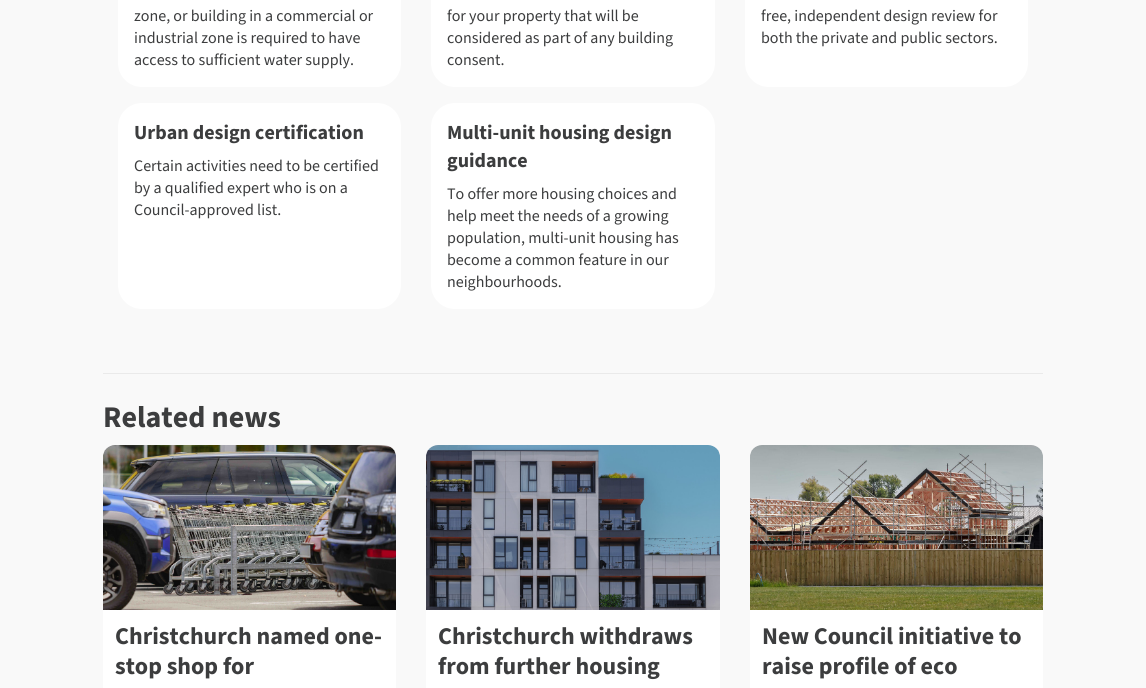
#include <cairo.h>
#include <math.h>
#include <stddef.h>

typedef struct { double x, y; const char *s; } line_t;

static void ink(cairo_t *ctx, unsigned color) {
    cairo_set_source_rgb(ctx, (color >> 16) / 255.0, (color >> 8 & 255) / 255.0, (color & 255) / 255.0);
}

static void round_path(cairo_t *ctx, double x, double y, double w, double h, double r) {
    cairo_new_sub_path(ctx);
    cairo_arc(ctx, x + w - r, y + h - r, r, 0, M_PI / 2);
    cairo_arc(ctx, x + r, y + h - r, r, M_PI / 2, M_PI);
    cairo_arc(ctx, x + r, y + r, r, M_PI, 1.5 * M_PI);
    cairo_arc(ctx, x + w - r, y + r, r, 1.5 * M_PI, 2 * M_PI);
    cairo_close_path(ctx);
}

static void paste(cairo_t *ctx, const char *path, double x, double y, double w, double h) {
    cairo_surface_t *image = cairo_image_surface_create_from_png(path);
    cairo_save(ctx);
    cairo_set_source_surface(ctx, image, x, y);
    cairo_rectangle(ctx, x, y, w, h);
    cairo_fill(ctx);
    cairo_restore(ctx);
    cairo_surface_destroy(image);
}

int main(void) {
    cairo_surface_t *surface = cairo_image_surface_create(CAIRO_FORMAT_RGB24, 1146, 688);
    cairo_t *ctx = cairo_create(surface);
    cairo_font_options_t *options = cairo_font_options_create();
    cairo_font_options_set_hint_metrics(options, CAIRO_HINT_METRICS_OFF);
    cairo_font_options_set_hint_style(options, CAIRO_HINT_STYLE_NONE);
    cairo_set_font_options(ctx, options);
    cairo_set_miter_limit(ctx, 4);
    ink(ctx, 0xF9F9F9);
    cairo_paint(ctx);
    ink(ctx, 0xFFFFFF);
    round_path(ctx, 118, -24, 283, 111, 24);
    cairo_fill(ctx);
    cairo_select_font_face(ctx, "Source Sans 3", CAIRO_FONT_SLANT_NORMAL, CAIRO_FONT_WEIGHT_NORMAL);
    cairo_set_font_size(ctx, 16);
    ink(ctx, 0x3C3D3E);
    {
        static const line_t items[] = {
            {134, 21, "zone, or building in a commercial or"},
            {134, 43, "industrial zone is required to have"},
            {134, 65, "access to sufficient water supply."},
        };
        for (size_t i = 0; i < sizeof items / sizeof *items; i++) {
            cairo_move_to(ctx, items[i].x, items[i].y);
            cairo_show_text(ctx, items[i].s);
        }
    }
    ink(ctx, 0xFFFFFF);
    round_path(ctx, 431, -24, 284, 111, 24);
    cairo_fill(ctx);
    ink(ctx, 0x3C3D3E);
    {
        static const line_t items[] = {
            {447, 21, "for your property that will be"},
            {447, 43, "considered as part of any building"},
            {447, 65, "consent."},
        };
        for (size_t i = 0; i < sizeof items / sizeof *items; i++) {
            cairo_move_to(ctx, items[i].x, items[i].y);
            cairo_show_text(ctx, items[i].s);
        }
    }
    ink(ctx, 0xFFFFFF);
    round_path(ctx, 745, -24, 283, 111, 24);
    cairo_fill(ctx);
    ink(ctx, 0x3C3D3E);
    cairo_move_to(ctx, 761, 21);
    cairo_show_text(ctx, "free, independent design review for");
    cairo_move_to(ctx, 761, 43);
    cairo_show_text(ctx, "both the private and public sectors.");
    ink(ctx, 0xFFFFFF);
    round_path(ctx, 118, 103, 283, 206, 24);
    cairo_fill(ctx);
    cairo_select_font_face(ctx, "Source Sans 3", CAIRO_FONT_SLANT_NORMAL, CAIRO_FONT_WEIGHT_BOLD);
    cairo_set_font_size(ctx, 20);
    ink(ctx, 0x3C3D3E);
    cairo_move_to(ctx, 134, 139);
    cairo_show_text(ctx, "Urban design certification");
    cairo_select_font_face(ctx, "Source Sans 3", CAIRO_FONT_SLANT_NORMAL, CAIRO_FONT_WEIGHT_NORMAL);
    cairo_set_font_size(ctx, 16);
    {
        static const line_t items[] = {
            {134, 171, "Certain activities need to be certified"},
            {134, 193, "by a qualified expert who is on a"},
            {134, 215, "Council-approved list."},
        };
        for (size_t i = 0; i < sizeof items / sizeof *items; i++) {
            cairo_move_to(ctx, items[i].x, items[i].y);
            cairo_show_text(ctx, items[i].s);
        }
    }
    ink(ctx, 0xFFFFFF);
    round_path(ctx, 431, 103, 284, 206, 24);
    cairo_fill(ctx);
    cairo_select_font_face(ctx, "Source Sans 3", CAIRO_FONT_SLANT_NORMAL, CAIRO_FONT_WEIGHT_BOLD);
    cairo_set_font_size(ctx, 20);
    ink(ctx, 0x3C3D3E);
    cairo_move_to(ctx, 447, 139);
    cairo_show_text(ctx, "Multi-unit housing design");
    cairo_move_to(ctx, 447, 167);
    cairo_show_text(ctx, "guidance");
    cairo_select_font_face(ctx, "Source Sans 3", CAIRO_FONT_SLANT_NORMAL, CAIRO_FONT_WEIGHT_NORMAL);
    cairo_set_font_size(ctx, 16);
    {
        static const line_t items[] = {
            {447, 199, "To offer more housing choices and"},
            {447, 221, "help meet the needs of a growing"},
            {447, 243, "population, multi-unit housing has"},
            {447, 265, "become a common feature in our"},
            {447, 287, "neighbourhoods."},
        };
        for (size_t i = 0; i < sizeof items / sizeof *items; i++) {
            cairo_move_to(ctx, items[i].x, items[i].y);
            cairo_show_text(ctx, items[i].s);
        }
    }
    ink(ctx, 0xEAEAEA);
    cairo_rectangle(ctx, 103, 373, 940, 1);
    cairo_fill(ctx);
    cairo_select_font_face(ctx, "Source Sans 3", CAIRO_FONT_SLANT_NORMAL, CAIRO_FONT_WEIGHT_BOLD);
    cairo_set_font_size(ctx, 30);
    ink(ctx, 0x3C3D3E);
    cairo_move_to(ctx, 103, 427);
    cairo_show_text(ctx, "Related news");
    ink(ctx, 0xFFFFFF);
    cairo_new_path(ctx);
    cairo_move_to(ctx, 115, 445);
    cairo_line_to(ctx, 384, 445);
    cairo_curve_to(ctx, 390.5, 445, 396, 450.5, 396, 457);
    cairo_line_to(ctx, 396, 688);
    cairo_curve_to(ctx, 396, 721, 369, 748, 336, 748);
    cairo_line_to(ctx, 115, 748);
    cairo_curve_to(ctx, 108.5, 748, 103, 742.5, 103, 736);
    cairo_line_to(ctx, 103, 457);
    cairo_curve_to(ctx, 103, 450.5, 108.5, 445, 115, 445);
    cairo_close_path(ctx);
    cairo_fill(ctx);
    paste(ctx, "media/1.png", 103, 445, 293, 165);
    cairo_set_font_size(ctx, 24);
    ink(ctx, 0x3C3D3E);
    cairo_move_to(ctx, 115, 644);
    cairo_show_text(ctx, "Christchurch named one-");
    cairo_move_to(ctx, 115, 674);
    cairo_show_text(ctx, "stop shop for");
    ink(ctx, 0xFFFFFF);
    cairo_new_path(ctx);
    cairo_move_to(ctx, 438, 445);
    cairo_line_to(ctx, 708, 445);
    cairo_curve_to(ctx, 714.5, 445, 720, 450.5, 720, 457);
    cairo_line_to(ctx, 720, 688);
    cairo_curve_to(ctx, 720, 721, 693, 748, 660, 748);
    cairo_line_to(ctx, 438, 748);
    cairo_curve_to(ctx, 431.5, 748, 426, 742.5, 426, 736);
    cairo_line_to(ctx, 426, 457);
    cairo_curve_to(ctx, 426, 450.5, 431.5, 445, 438, 445);
    cairo_close_path(ctx);
    cairo_fill(ctx);
    paste(ctx, "media/2.png", 426, 445, 294, 165);
    ink(ctx, 0x3C3D3E);
    cairo_move_to(ctx, 438, 644);
    cairo_show_text(ctx, "Christchurch withdraws");
    cairo_move_to(ctx, 438, 674);
    cairo_show_text(ctx, "from further housing");
    ink(ctx, 0xFFFFFF);
    cairo_new_path(ctx);
    cairo_move_to(ctx, 762, 445);
    cairo_line_to(ctx, 1031, 445);
    cairo_curve_to(ctx, 1037.5, 445, 1043, 450.5, 1043, 457);
    cairo_line_to(ctx, 1043, 688);
    cairo_curve_to(ctx, 1043, 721, 1016, 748, 983, 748);
    cairo_line_to(ctx, 762, 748);
    cairo_curve_to(ctx, 755.5, 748, 750, 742.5, 750, 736);
    cairo_line_to(ctx, 750, 457);
    cairo_curve_to(ctx, 750, 450.5, 755.5, 445, 762, 445);
    cairo_close_path(ctx);
    cairo_fill(ctx);
    paste(ctx, "media/3.png", 750, 445, 293, 165);
    ink(ctx, 0x3C3D3E);
    cairo_move_to(ctx, 762, 644);
    cairo_show_text(ctx, "New Council initiative to");
    cairo_move_to(ctx, 762, 674);
    cairo_show_text(ctx, "raise profile of eco");
    cairo_surface_write_to_png(surface, "image.png");
    cairo_font_options_destroy(options);
    cairo_destroy(ctx);
    cairo_surface_destroy(surface);
    return 0;
}
